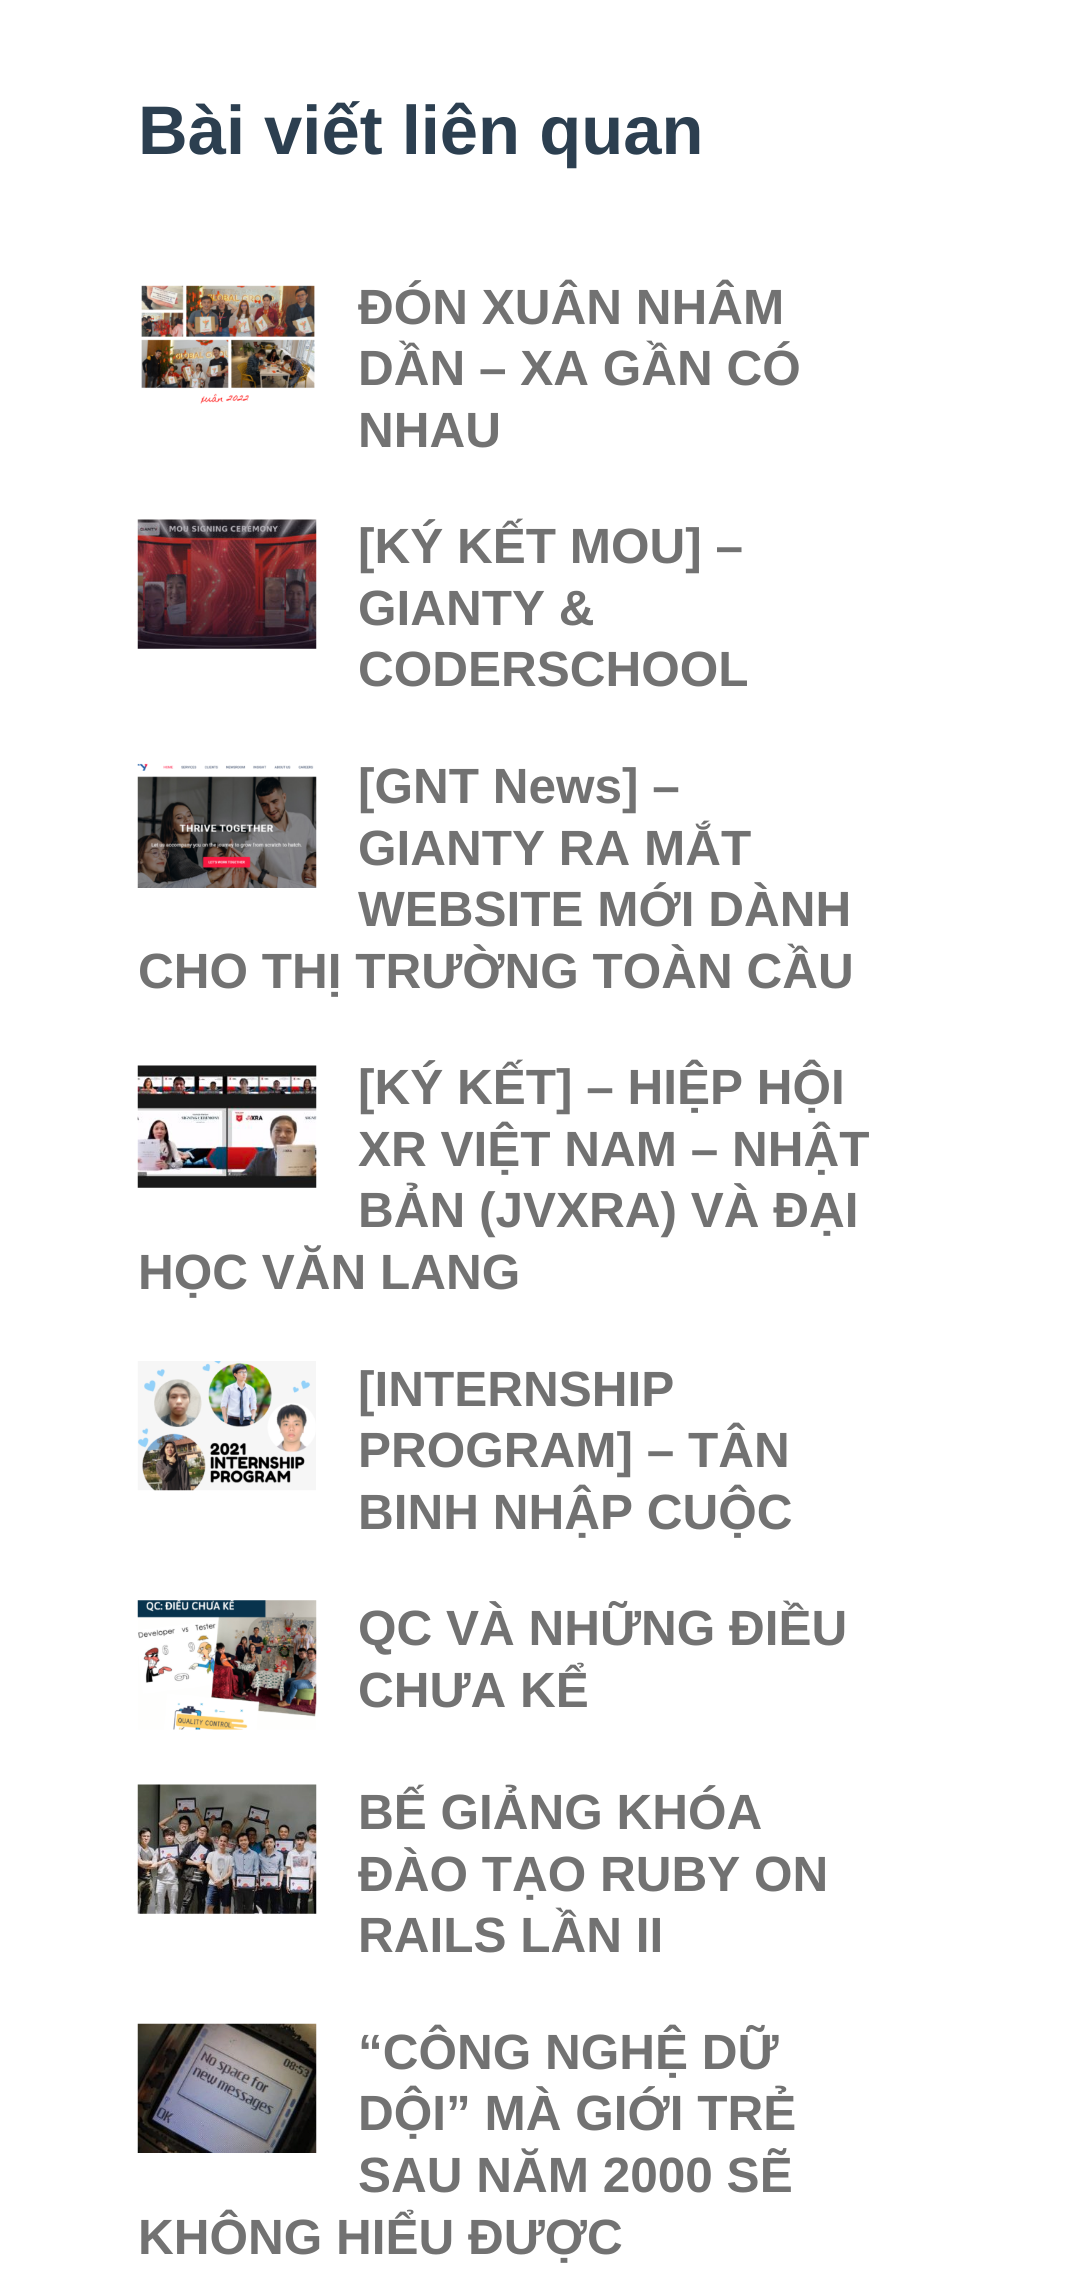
#include <cairo.h>
#include <math.h>
#include <stddef.h>

typedef struct { double x, y; const char *s; } line_t;

static void ink(cairo_t *ctx, unsigned color) {
    cairo_set_source_rgb(ctx, (color >> 16) / 255.0, (color >> 8 & 255) / 255.0, (color & 255) / 255.0);
}

static void paste(cairo_t *ctx, const char *path, double x, double y, double w, double h) {
    cairo_surface_t *image = cairo_image_surface_create_from_png(path);
    cairo_save(ctx);
    cairo_set_source_surface(ctx, image, x, y);
    cairo_rectangle(ctx, x, y, w, h);
    cairo_fill(ctx);
    cairo_restore(ctx);
    cairo_surface_destroy(image);
}

int main(void) {
    cairo_surface_t *surface = cairo_image_surface_create(CAIRO_FORMAT_RGB24, 1090, 2281);
    cairo_t *ctx = cairo_create(surface);
    cairo_font_options_t *options = cairo_font_options_create();
    cairo_font_options_set_hint_metrics(options, CAIRO_HINT_METRICS_OFF);
    cairo_font_options_set_hint_style(options, CAIRO_HINT_STYLE_NONE);
    cairo_set_font_options(ctx, options);
    cairo_set_miter_limit(ctx, 4);
    ink(ctx, 0xFFFFFF);
    cairo_paint(ctx);
    cairo_select_font_face(ctx, "Liberation Sans", CAIRO_FONT_SLANT_NORMAL, CAIRO_FONT_WEIGHT_BOLD);
    cairo_set_font_size(ctx, 68.75);
    ink(ctx, 0x2C3F50);
    cairo_move_to(ctx, 138, 154);
    cairo_show_text(ctx, "Bài viết liên quan");
    paste(ctx, "media/1.png", 141, 285, 174, 119);
    cairo_set_font_size(ctx, 49.5);
    ink(ctx, 0x727272);
    {
        static const line_t items[] = {
            {358, 324, "ĐÓN XUÂN NHÂM"},
            {358, 385, "DẦN – XA GẦN CÓ"},
            {358, 447, "NHAU"},
        };
        for (size_t i = 0; i < sizeof items / sizeof *items; i++) {
            cairo_move_to(ctx, items[i].x, items[i].y);
            cairo_show_text(ctx, items[i].s);
        }
    }
    paste(ctx, "media/2.png", 137, 519, 180, 130);
    {
        static const line_t items[] = {
            {358, 563, "[KÝ KẾT MOU] –"},
            {358, 625, "GIANTY &"},
            {358, 686, "CODERSCHOOL"},
        };
        for (size_t i = 0; i < sizeof items / sizeof *items; i++) {
            cairo_move_to(ctx, items[i].x, items[i].y);
            cairo_show_text(ctx, items[i].s);
        }
    }
    paste(ctx, "media/3.png", 137, 763, 180, 125);
    {
        static const line_t items[] = {
            {358, 803, "[GNT News] –"},
            {358, 865, "GIANTY RA MẮT"},
            {358, 926, "WEBSITE MỚI DÀNH"},
            {138, 988, "CHO THỊ TRƯỜNG TOÀN CẦU"},
        };
        for (size_t i = 0; i < sizeof items / sizeof *items; i++) {
            cairo_move_to(ctx, items[i].x, items[i].y);
            cairo_show_text(ctx, items[i].s);
        }
    }
    paste(ctx, "media/4.png", 137, 1065, 180, 123);
    {
        static const line_t items[] = {
            {358, 1104, "[KÝ KẾT] – HIỆP HỘI"},
            {358, 1166, "XR VIỆT NAM – NHẬT"},
            {358, 1227, "BẢN (JVXRA) VÀ ĐẠI"},
            {138, 1289, "HỌC VĂN LANG"},
        };
        for (size_t i = 0; i < sizeof items / sizeof *items; i++) {
            cairo_move_to(ctx, items[i].x, items[i].y);
            cairo_show_text(ctx, items[i].s);
        }
    }
    paste(ctx, "media/5.png", 137, 1361, 179, 130);
    {
        static const line_t items[] = {
            {358, 1406, "[INTERNSHIP"},
            {358, 1467, "PROGRAM] – TÂN"},
            {358, 1529, "BINH NHẬP CUỘC"},
        };
        for (size_t i = 0; i < sizeof items / sizeof *items; i++) {
            cairo_move_to(ctx, items[i].x, items[i].y);
            cairo_show_text(ctx, items[i].s);
        }
    }
    paste(ctx, "media/6.png", 137, 1600, 180, 130);
    cairo_move_to(ctx, 358, 1645);
    cairo_show_text(ctx, "QC VÀ NHỮNG ĐIỀU");
    cairo_move_to(ctx, 358, 1707);
    cairo_show_text(ctx, "CHƯA KỂ");
    paste(ctx, "media/7.png", 137, 1784, 180, 130);
    {
        static const line_t items[] = {
            {358, 1829, "BẾ GIẢNG KHÓA"},
            {358, 1891, "ĐÀO TẠO RUBY ON"},
            {358, 1952, "RAILS LẦN II"},
        };
        for (size_t i = 0; i < sizeof items / sizeof *items; i++) {
            cairo_move_to(ctx, items[i].x, items[i].y);
            cairo_show_text(ctx, items[i].s);
        }
    }
    paste(ctx, "media/8.png", 137, 2023, 180, 130);
    {
        static const line_t items[] = {
            {358, 2069, "“CÔNG NGHỆ DỮ"},
            {358, 2130, "DỘI” MÀ GIỚI TRẺ"},
            {358, 2192, "SAU NĂM 2000 SẼ"},
            {138, 2254, "KHÔNG HIỂU ĐƯỢC"},
        };
        for (size_t i = 0; i < sizeof items / sizeof *items; i++) {
            cairo_move_to(ctx, items[i].x, items[i].y);
            cairo_show_text(ctx, items[i].s);
        }
    }
    cairo_surface_write_to_png(surface, "image.png");
    cairo_font_options_destroy(options);
    cairo_destroy(ctx);
    cairo_surface_destroy(surface);
    return 0;
}
